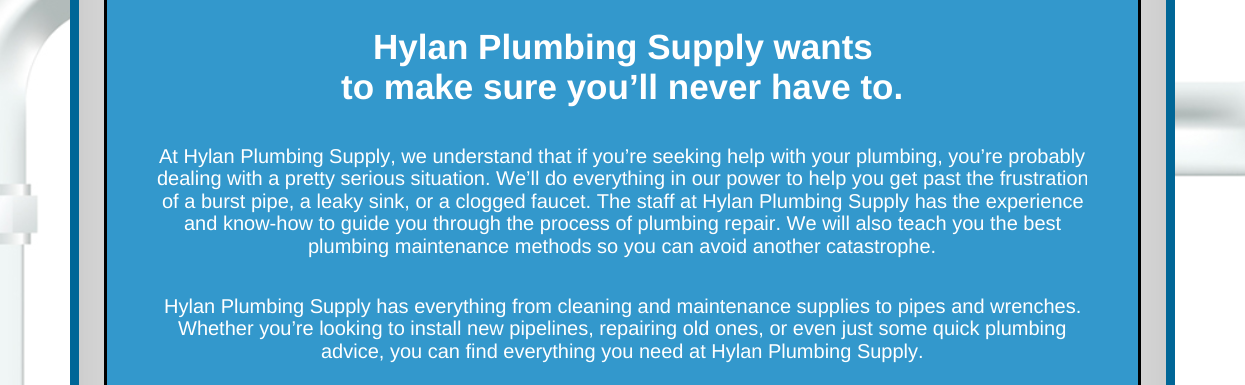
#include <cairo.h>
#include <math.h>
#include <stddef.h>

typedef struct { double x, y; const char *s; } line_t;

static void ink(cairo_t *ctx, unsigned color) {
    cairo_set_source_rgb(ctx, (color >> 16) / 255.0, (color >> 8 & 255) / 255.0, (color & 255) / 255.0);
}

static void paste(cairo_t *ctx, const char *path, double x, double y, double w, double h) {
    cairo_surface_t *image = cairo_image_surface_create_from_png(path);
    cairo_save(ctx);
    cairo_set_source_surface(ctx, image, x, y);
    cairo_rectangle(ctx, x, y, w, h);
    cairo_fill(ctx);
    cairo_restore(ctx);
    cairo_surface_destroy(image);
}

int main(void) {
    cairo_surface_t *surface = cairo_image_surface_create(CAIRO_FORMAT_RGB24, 1245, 385);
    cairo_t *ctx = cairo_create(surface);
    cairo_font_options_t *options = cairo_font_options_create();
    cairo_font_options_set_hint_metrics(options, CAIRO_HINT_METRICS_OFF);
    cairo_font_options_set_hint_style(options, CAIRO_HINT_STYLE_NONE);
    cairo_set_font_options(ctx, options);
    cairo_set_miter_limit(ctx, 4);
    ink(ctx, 0xFFFFFF);
    cairo_paint(ctx);
    paste(ctx, "media/1.png", 0, 0, 1245, 385);
    paste(ctx, "media/2.png", 79, 0, 1087, 385);
    ink(ctx, 0x006697);
    cairo_rectangle(ctx, 1166, 0, 9, 385);
    cairo_fill(ctx);
    cairo_rectangle(ctx, 70, 0, 9, 385);
    cairo_fill(ctx);
    ink(ctx, 0x3398CC);
    cairo_rectangle(ctx, 105.5, -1.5, 1034, 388);
    cairo_fill_preserve(ctx);
    ink(ctx, 0x000000);
    cairo_set_line_width(ctx, 3);
    cairo_stroke(ctx);
    cairo_select_font_face(ctx, "Liberation Sans", CAIRO_FONT_SLANT_NORMAL, CAIRO_FONT_WEIGHT_BOLD);
    cairo_set_font_size(ctx, 35);
    ink(ctx, 0xFFFFFF);
    cairo_move_to(ctx, 373, 59);
    cairo_show_text(ctx, "Hylan Plumbing Supply wants");
    cairo_move_to(ctx, 341, 99);
    cairo_show_text(ctx, "to make sure you’ll never have to.");
    cairo_select_font_face(ctx, "Liberation Sans", CAIRO_FONT_SLANT_NORMAL, CAIRO_FONT_WEIGHT_NORMAL);
    cairo_set_font_size(ctx, 20);
    {
        static const line_t items[] = {
            {159, 163, "At Hylan Plumbing Supply, we understand that if you’re seeking help with your plumbing, you’re probably"},
            {157, 185, "dealing with a pretty serious situation. We’ll do everything in our power to help you get past the frustration"},
            {162, 208, "of a burst pipe, a leaky sink, or a clogged faucet. The staff at Hylan Plumbing Supply has the experience"},
            {184, 230, "and know-how to guide you through the process of plumbing repair. We will also teach you the best"},
            {308, 253, "plumbing maintenance methods so you can avoid another catastrophe."},
            {164, 313, "Hylan Plumbing Supply has everything from cleaning and maintenance supplies to pipes and wrenches."},
            {178, 335, "Whether you’re looking to install new pipelines, repairing old ones, or even just some quick plumbing"},
            {321, 358, "advice, you can find everything you need at Hylan Plumbing Supply."},
        };
        for (size_t i = 0; i < sizeof items / sizeof *items; i++) {
            cairo_move_to(ctx, items[i].x, items[i].y);
            cairo_show_text(ctx, items[i].s);
        }
    }
    cairo_surface_write_to_png(surface, "image.png");
    cairo_font_options_destroy(options);
    cairo_destroy(ctx);
    cairo_surface_destroy(surface);
    return 0;
}
